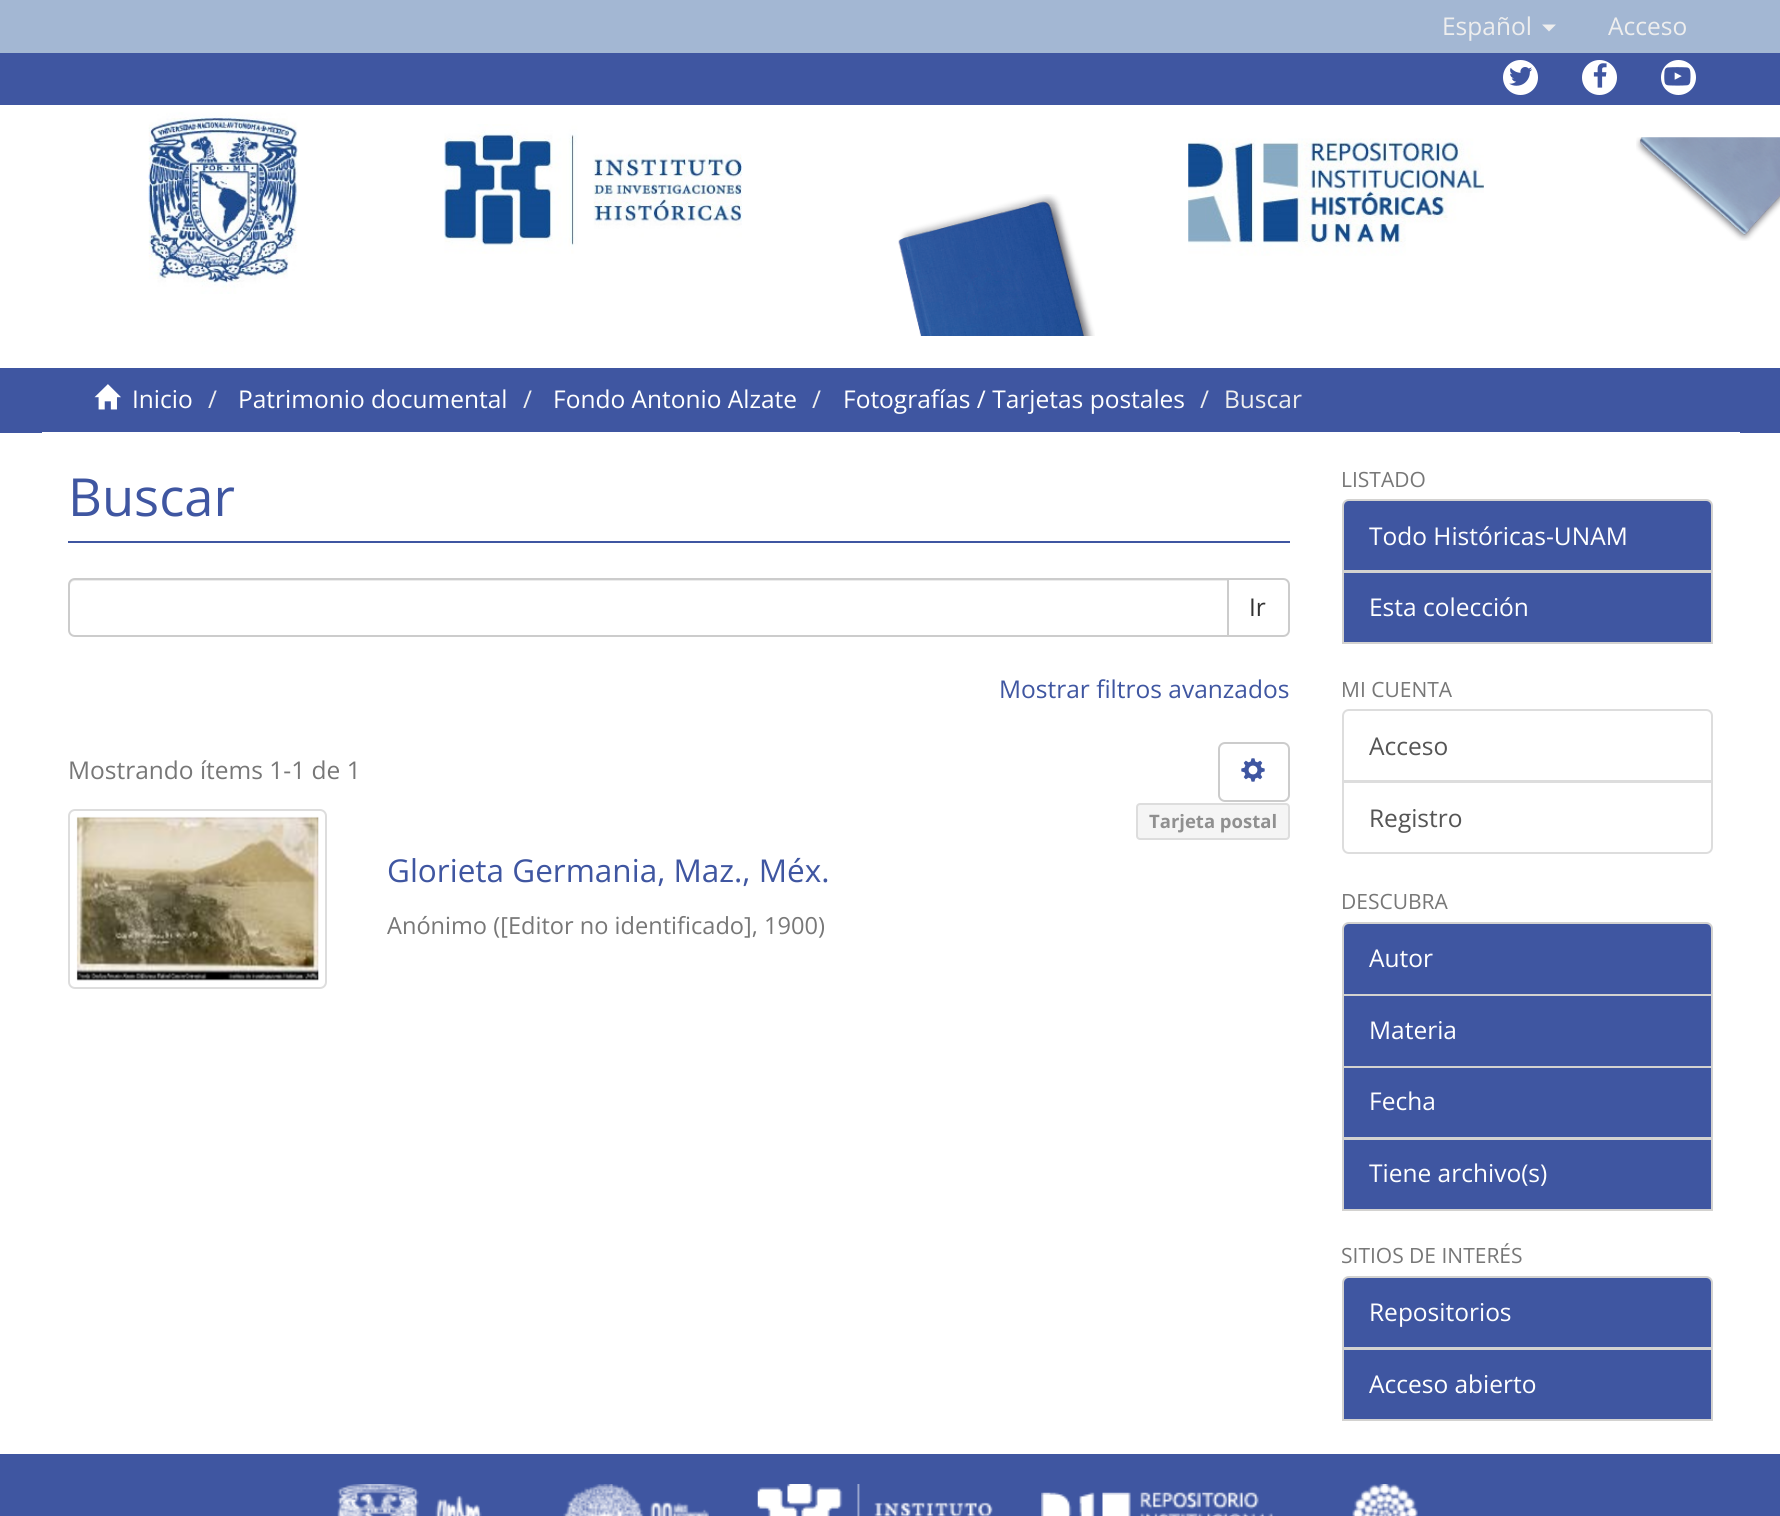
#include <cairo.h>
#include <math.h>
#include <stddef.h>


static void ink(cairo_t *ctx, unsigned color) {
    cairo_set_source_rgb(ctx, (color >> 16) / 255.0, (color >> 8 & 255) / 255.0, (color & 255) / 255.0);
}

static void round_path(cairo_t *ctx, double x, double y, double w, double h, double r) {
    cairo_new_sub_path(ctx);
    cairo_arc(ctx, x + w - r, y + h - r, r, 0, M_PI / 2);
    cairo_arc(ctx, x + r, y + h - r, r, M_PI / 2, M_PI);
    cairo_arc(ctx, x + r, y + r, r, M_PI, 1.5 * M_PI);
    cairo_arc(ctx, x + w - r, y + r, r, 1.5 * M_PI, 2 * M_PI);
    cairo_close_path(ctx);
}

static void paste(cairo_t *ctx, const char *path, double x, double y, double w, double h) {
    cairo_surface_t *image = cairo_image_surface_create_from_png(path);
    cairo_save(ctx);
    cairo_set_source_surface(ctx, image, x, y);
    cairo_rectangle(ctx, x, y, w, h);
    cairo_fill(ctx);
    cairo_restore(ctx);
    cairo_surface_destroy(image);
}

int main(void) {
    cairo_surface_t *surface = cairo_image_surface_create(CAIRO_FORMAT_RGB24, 1780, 1516);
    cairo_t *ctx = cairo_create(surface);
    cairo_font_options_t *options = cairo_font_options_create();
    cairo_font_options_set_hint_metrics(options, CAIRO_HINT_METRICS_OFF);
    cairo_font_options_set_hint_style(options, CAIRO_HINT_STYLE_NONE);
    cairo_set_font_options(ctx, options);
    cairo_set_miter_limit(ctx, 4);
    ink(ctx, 0xFFFFFF);
    cairo_paint(ctx);
    ink(ctx, 0xA3B7D3);
    cairo_rectangle(ctx, 0, 0, 1780, 53);
    cairo_fill(ctx);
    cairo_select_font_face(ctx, "Open Sans", CAIRO_FONT_SLANT_NORMAL, CAIRO_FONT_WEIGHT_NORMAL);
    cairo_set_font_size(ctx, 24.5);
    ink(ctx, 0xEEEEEE);
    cairo_move_to(ctx, 1442, 35);
    cairo_show_text(ctx, "Español");
    cairo_new_path(ctx);
    cairo_move_to(ctx, 1542, 24.5);
    cairo_line_to(ctx, 1556, 24.5);
    cairo_line_to(ctx, 1549, 31.5);
    cairo_close_path(ctx);
    cairo_fill(ctx);
    cairo_move_to(ctx, 1608, 35);
    cairo_show_text(ctx, "Acceso");
    ink(ctx, 0x3F56A1);
    cairo_rectangle(ctx, 0, 53, 1780, 52);
    cairo_fill(ctx);
    ink(ctx, 0xFFFFFF);
    cairo_arc(ctx, 1520.5, 77.5, 17.5, 0, 2 * M_PI);
    cairo_fill(ctx);
    paste(ctx, "media/1.png", 1509, 67, 24, 19);
    cairo_arc(ctx, 1599.5, 77.5, 17.5, 0, 2 * M_PI);
    cairo_fill(ctx);
    paste(ctx, "media/2.png", 1593, 63, 14, 25);
    cairo_arc(ctx, 1678.5, 77.5, 17.5, 0, 2 * M_PI);
    cairo_fill(ctx);
    paste(ctx, "media/3.png", 1664, 67, 27, 19);
    paste(ctx, "media/4.png", 148, 112, 150, 182);
    paste(ctx, "media/5.png", 444, 124, 298, 130);
    paste(ctx, "media/6.png", 898, 194, 197, 142);
    paste(ctx, "media/7.png", 1188, 138, 296, 118);
    paste(ctx, "media/8.png", 1636, 137, 144, 104);
    ink(ctx, 0x3F56A1);
    cairo_rectangle(ctx, 0, 368, 1780, 65);
    cairo_fill(ctx);
    paste(ctx, "media/9.png", 94, 384, 27, 26);
    ink(ctx, 0xFFFFFF);
    cairo_move_to(ctx, 132, 408);
    cairo_show_text(ctx, "Inicio");
    ink(ctx, 0xEEEEEE);
    cairo_move_to(ctx, 208, 408);
    cairo_show_text(ctx, "/");
    ink(ctx, 0xFFFFFF);
    cairo_move_to(ctx, 238, 408);
    cairo_show_text(ctx, "Patrimonio documental");
    ink(ctx, 0xEEEEEE);
    cairo_move_to(ctx, 523, 408);
    cairo_show_text(ctx, "/");
    ink(ctx, 0xFFFFFF);
    cairo_move_to(ctx, 553, 408);
    cairo_show_text(ctx, "Fondo Antonio Alzate");
    ink(ctx, 0xEEEEEE);
    cairo_move_to(ctx, 812, 408);
    cairo_show_text(ctx, "/");
    ink(ctx, 0xFFFFFF);
    cairo_move_to(ctx, 843, 408);
    cairo_show_text(ctx, "Fotografías / Tarjetas postales");
    ink(ctx, 0xEEEEEE);
    cairo_move_to(ctx, 1200, 408);
    cairo_show_text(ctx, "/");
    cairo_move_to(ctx, 1224, 408);
    cairo_show_text(ctx, "Buscar");
    ink(ctx, 0xFFFFFF);
    cairo_rectangle(ctx, 42, 432, 1698, 1);
    cairo_fill(ctx);
    ink(ctx, 0x3F56A1);
    cairo_rectangle(ctx, 68, 541, 1222, 2);
    cairo_fill(ctx);
    cairo_set_font_size(ctx, 52.5);
    cairo_move_to(ctx, 68, 516);
    cairo_show_text(ctx, "Buscar");
    cairo_new_path(ctx);
    cairo_move_to(ctx, 1228, 579);
    cairo_line_to(ctx, 1283, 579);
    cairo_curve_to(ctx, 1286.5, 579, 1289, 581.5, 1289, 585);
    cairo_line_to(ctx, 1289, 630);
    cairo_curve_to(ctx, 1289, 633.5, 1286.5, 636, 1283, 636);
    cairo_line_to(ctx, 1228, 636);
    cairo_close_path(ctx);
    ink(ctx, 0xCCCCCC);
    cairo_stroke(ctx);
    ink(ctx, 0xFFFFFF);
    cairo_new_path(ctx);
    cairo_move_to(ctx, 75, 578);
    cairo_line_to(ctx, 1229, 578);
    cairo_line_to(ctx, 1229, 637);
    cairo_line_to(ctx, 75, 637);
    cairo_curve_to(ctx, 71, 637, 68, 634, 68, 630);
    cairo_line_to(ctx, 68, 585);
    cairo_curve_to(ctx, 68, 581, 71, 578, 75, 578);
    cairo_close_path(ctx);
    cairo_fill(ctx);
    ink(ctx, 0xECECEC);
    cairo_new_path(ctx);
    cairo_move_to(ctx, 75, 581);
    cairo_line_to(ctx, 1227, 581);
    cairo_line_to(ctx, 1227, 579);
    cairo_line_to(ctx, 75, 579);
    cairo_curve_to(ctx, 72, 579, 70, 581, 70, 584);
    cairo_line_to(ctx, 70, 586);
    cairo_curve_to(ctx, 70, 583, 72, 581, 75, 581);
    cairo_close_path(ctx);
    cairo_fill(ctx);
    cairo_new_path(ctx);
    cairo_move_to(ctx, 75, 579);
    cairo_line_to(ctx, 1228, 579);
    cairo_line_to(ctx, 1228, 636);
    cairo_line_to(ctx, 75, 636);
    cairo_curve_to(ctx, 71.5, 636, 69, 633.5, 69, 630);
    cairo_line_to(ctx, 69, 585);
    cairo_curve_to(ctx, 69, 581.5, 71.5, 579, 75, 579);
    cairo_close_path(ctx);
    ink(ctx, 0xCCCCCC);
    cairo_stroke(ctx);
    cairo_set_font_size(ctx, 24.5);
    ink(ctx, 0x333333);
    cairo_move_to(ctx, 1249, 616);
    cairo_show_text(ctx, "Ir");
    ink(ctx, 0x3F56A1);
    cairo_move_to(ctx, 999, 698);
    cairo_show_text(ctx, "Mostrar filtros avanzados");
    ink(ctx, 0x777777);
    cairo_move_to(ctx, 68, 779);
    cairo_show_text(ctx, "Mostrando ítems 1-1 de 1");
    round_path(ctx, 1219, 743, 70, 58, 6);
    ink(ctx, 0xCCCCCC);
    cairo_stroke(ctx);
    paste(ctx, "media/10.png", 1241, 758, 24, 24);
    round_path(ctx, 69, 810, 257, 178, 6);
    ink(ctx, 0xDDDDDD);
    cairo_stroke(ctx);
    paste(ctx, "media/11.png", 76, 816, 243, 165);
    ink(ctx, 0xF5F5F5);
    round_path(ctx, 1137, 804, 152, 35, 3);
    cairo_fill_preserve(ctx);
    ink(ctx, 0xDDDDDD);
    cairo_stroke(ctx);
    cairo_select_font_face(ctx, "Open Sans", CAIRO_FONT_SLANT_NORMAL, CAIRO_FONT_WEIGHT_BOLD);
    cairo_set_font_size(ctx, 18.5);
    ink(ctx, 0x909090);
    cairo_move_to(ctx, 1149, 828);
    cairo_show_text(ctx, "Tarjeta postal");
    cairo_select_font_face(ctx, "Open Sans", CAIRO_FONT_SLANT_NORMAL, CAIRO_FONT_WEIGHT_NORMAL);
    cairo_set_font_size(ctx, 31.5);
    ink(ctx, 0x3F56A1);
    cairo_move_to(ctx, 387, 882);
    cairo_show_text(ctx, "Glorieta Germania, Maz., Méx.");
    cairo_set_font_size(ctx, 23.6);
    ink(ctx, 0x777777);
    cairo_move_to(ctx, 387, 934);
    cairo_show_text(ctx, "Anónimo ([Editor no identificado], 1900)");
    cairo_set_font_size(ctx, 21);
    cairo_move_to(ctx, 1341, 487);
    cairo_show_text(ctx, "LISTADO");
    ink(ctx, 0x3F56A1);
    cairo_new_path(ctx);
    cairo_move_to(ctx, 1349, 500);
    cairo_line_to(ctx, 1706, 500);
    cairo_curve_to(ctx, 1709.5, 500, 1712, 502.5, 1712, 506);
    cairo_line_to(ctx, 1712, 571);
    cairo_line_to(ctx, 1343, 571);
    cairo_line_to(ctx, 1343, 506);
    cairo_curve_to(ctx, 1343, 502.5, 1345.5, 500, 1349, 500);
    cairo_close_path(ctx);
    cairo_fill_preserve(ctx);
    ink(ctx, 0xD3D2D0);
    cairo_stroke(ctx);
    cairo_set_font_size(ctx, 24.5);
    ink(ctx, 0xFFFFFF);
    cairo_move_to(ctx, 1369, 545);
    cairo_show_text(ctx, "Todo Históricas-UNAM");
    ink(ctx, 0x3F56A1);
    cairo_rectangle(ctx, 1343, 572, 369, 71);
    cairo_fill_preserve(ctx);
    ink(ctx, 0xD3D2D0);
    cairo_stroke(ctx);
    ink(ctx, 0xFFFFFF);
    cairo_move_to(ctx, 1369, 616);
    cairo_show_text(ctx, "Esta colección");
    cairo_set_font_size(ctx, 21);
    ink(ctx, 0x777777);
    cairo_move_to(ctx, 1341, 697);
    cairo_show_text(ctx, "MI CUENTA");
    cairo_new_path(ctx);
    cairo_move_to(ctx, 1349, 710);
    cairo_line_to(ctx, 1706, 710);
    cairo_curve_to(ctx, 1709.5, 710, 1712, 712.5, 1712, 716);
    cairo_line_to(ctx, 1712, 781);
    cairo_line_to(ctx, 1343, 781);
    cairo_line_to(ctx, 1343, 716);
    cairo_curve_to(ctx, 1343, 712.5, 1345.5, 710, 1349, 710);
    cairo_close_path(ctx);
    ink(ctx, 0xDDDDDD);
    cairo_stroke(ctx);
    cairo_set_font_size(ctx, 24.5);
    ink(ctx, 0x555555);
    cairo_move_to(ctx, 1369, 755);
    cairo_show_text(ctx, "Acceso");
    ink(ctx, 0xFFFFFF);
    cairo_new_path(ctx);
    cairo_move_to(ctx, 1343, 782);
    cairo_line_to(ctx, 1712, 782);
    cairo_line_to(ctx, 1712, 847);
    cairo_curve_to(ctx, 1712, 850.5, 1709.5, 853, 1706, 853);
    cairo_line_to(ctx, 1349, 853);
    cairo_curve_to(ctx, 1345.5, 853, 1343, 850.5, 1343, 847);
    cairo_close_path(ctx);
    cairo_fill_preserve(ctx);
    ink(ctx, 0xDDDDDD);
    cairo_stroke(ctx);
    ink(ctx, 0x555555);
    cairo_move_to(ctx, 1369, 827);
    cairo_show_text(ctx, "Registro");
    cairo_set_font_size(ctx, 21);
    ink(ctx, 0x777777);
    cairo_move_to(ctx, 1341, 909);
    cairo_show_text(ctx, "DESCUBRA");
    ink(ctx, 0x3F56A1);
    cairo_new_path(ctx);
    cairo_move_to(ctx, 1349, 923);
    cairo_line_to(ctx, 1706, 923);
    cairo_curve_to(ctx, 1709.5, 923, 1712, 925.5, 1712, 929);
    cairo_line_to(ctx, 1712, 995);
    cairo_line_to(ctx, 1343, 995);
    cairo_line_to(ctx, 1343, 929);
    cairo_curve_to(ctx, 1343, 925.5, 1345.5, 923, 1349, 923);
    cairo_close_path(ctx);
    cairo_fill_preserve(ctx);
    ink(ctx, 0xD3D2D0);
    cairo_stroke(ctx);
    cairo_set_font_size(ctx, 24.5);
    ink(ctx, 0xFFFFFF);
    cairo_move_to(ctx, 1369, 967);
    cairo_show_text(ctx, "Autor");
    ink(ctx, 0x3F56A1);
    cairo_rectangle(ctx, 1343, 995, 369, 72);
    cairo_fill_preserve(ctx);
    ink(ctx, 0xD3D2D0);
    cairo_stroke(ctx);
    ink(ctx, 0xFFFFFF);
    cairo_move_to(ctx, 1369, 1039);
    cairo_show_text(ctx, "Materia");
    ink(ctx, 0x3F56A1);
    cairo_rectangle(ctx, 1343, 1067, 369, 71);
    cairo_fill_preserve(ctx);
    ink(ctx, 0xD3D2D0);
    cairo_stroke(ctx);
    ink(ctx, 0xFFFFFF);
    cairo_move_to(ctx, 1369, 1110);
    cairo_show_text(ctx, "Fecha");
    ink(ctx, 0x3F56A1);
    cairo_rectangle(ctx, 1343, 1139, 369, 71);
    cairo_fill_preserve(ctx);
    ink(ctx, 0xD3D2D0);
    cairo_stroke(ctx);
    ink(ctx, 0xFFFFFF);
    cairo_move_to(ctx, 1369, 1182);
    cairo_show_text(ctx, "Tiene archivo(s)");
    cairo_set_font_size(ctx, 21);
    ink(ctx, 0x777777);
    cairo_move_to(ctx, 1341, 1263);
    cairo_show_text(ctx, "SITIOS DE INTERÉS");
    ink(ctx, 0x3F56A1);
    cairo_new_path(ctx);
    cairo_move_to(ctx, 1349, 1277);
    cairo_line_to(ctx, 1706, 1277);
    cairo_curve_to(ctx, 1709.5, 1277, 1712, 1279.5, 1712, 1283);
    cairo_line_to(ctx, 1712, 1348);
    cairo_line_to(ctx, 1343, 1348);
    cairo_line_to(ctx, 1343, 1283);
    cairo_curve_to(ctx, 1343, 1279.5, 1345.5, 1277, 1349, 1277);
    cairo_close_path(ctx);
    cairo_fill_preserve(ctx);
    ink(ctx, 0xD3D2D0);
    cairo_stroke(ctx);
    cairo_set_font_size(ctx, 24.5);
    ink(ctx, 0xFFFFFF);
    cairo_move_to(ctx, 1369, 1321);
    cairo_show_text(ctx, "Repositorios");
    ink(ctx, 0x3F56A1);
    cairo_rectangle(ctx, 1343, 1349, 369, 71);
    cairo_fill_preserve(ctx);
    ink(ctx, 0xD3D2D0);
    cairo_stroke(ctx);
    ink(ctx, 0xFFFFFF);
    cairo_move_to(ctx, 1369, 1393);
    cairo_show_text(ctx, "Acceso abierto");
    ink(ctx, 0x3F56A1);
    cairo_rectangle(ctx, 0, 1454, 1780, 62);
    cairo_fill(ctx);
    paste(ctx, "media/12.png", 337, 1484, 145, 32);
    paste(ctx, "media/13.png", 563, 1484, 146, 32);
    paste(ctx, "media/14.png", 757, 1484, 236, 32);
    paste(ctx, "media/15.png", 1041, 1492, 232, 24);
    paste(ctx, "media/16.png", 1352, 1484, 66, 32);
    cairo_surface_write_to_png(surface, "image.png");
    cairo_font_options_destroy(options);
    cairo_destroy(ctx);
    cairo_surface_destroy(surface);
    return 0;
}
